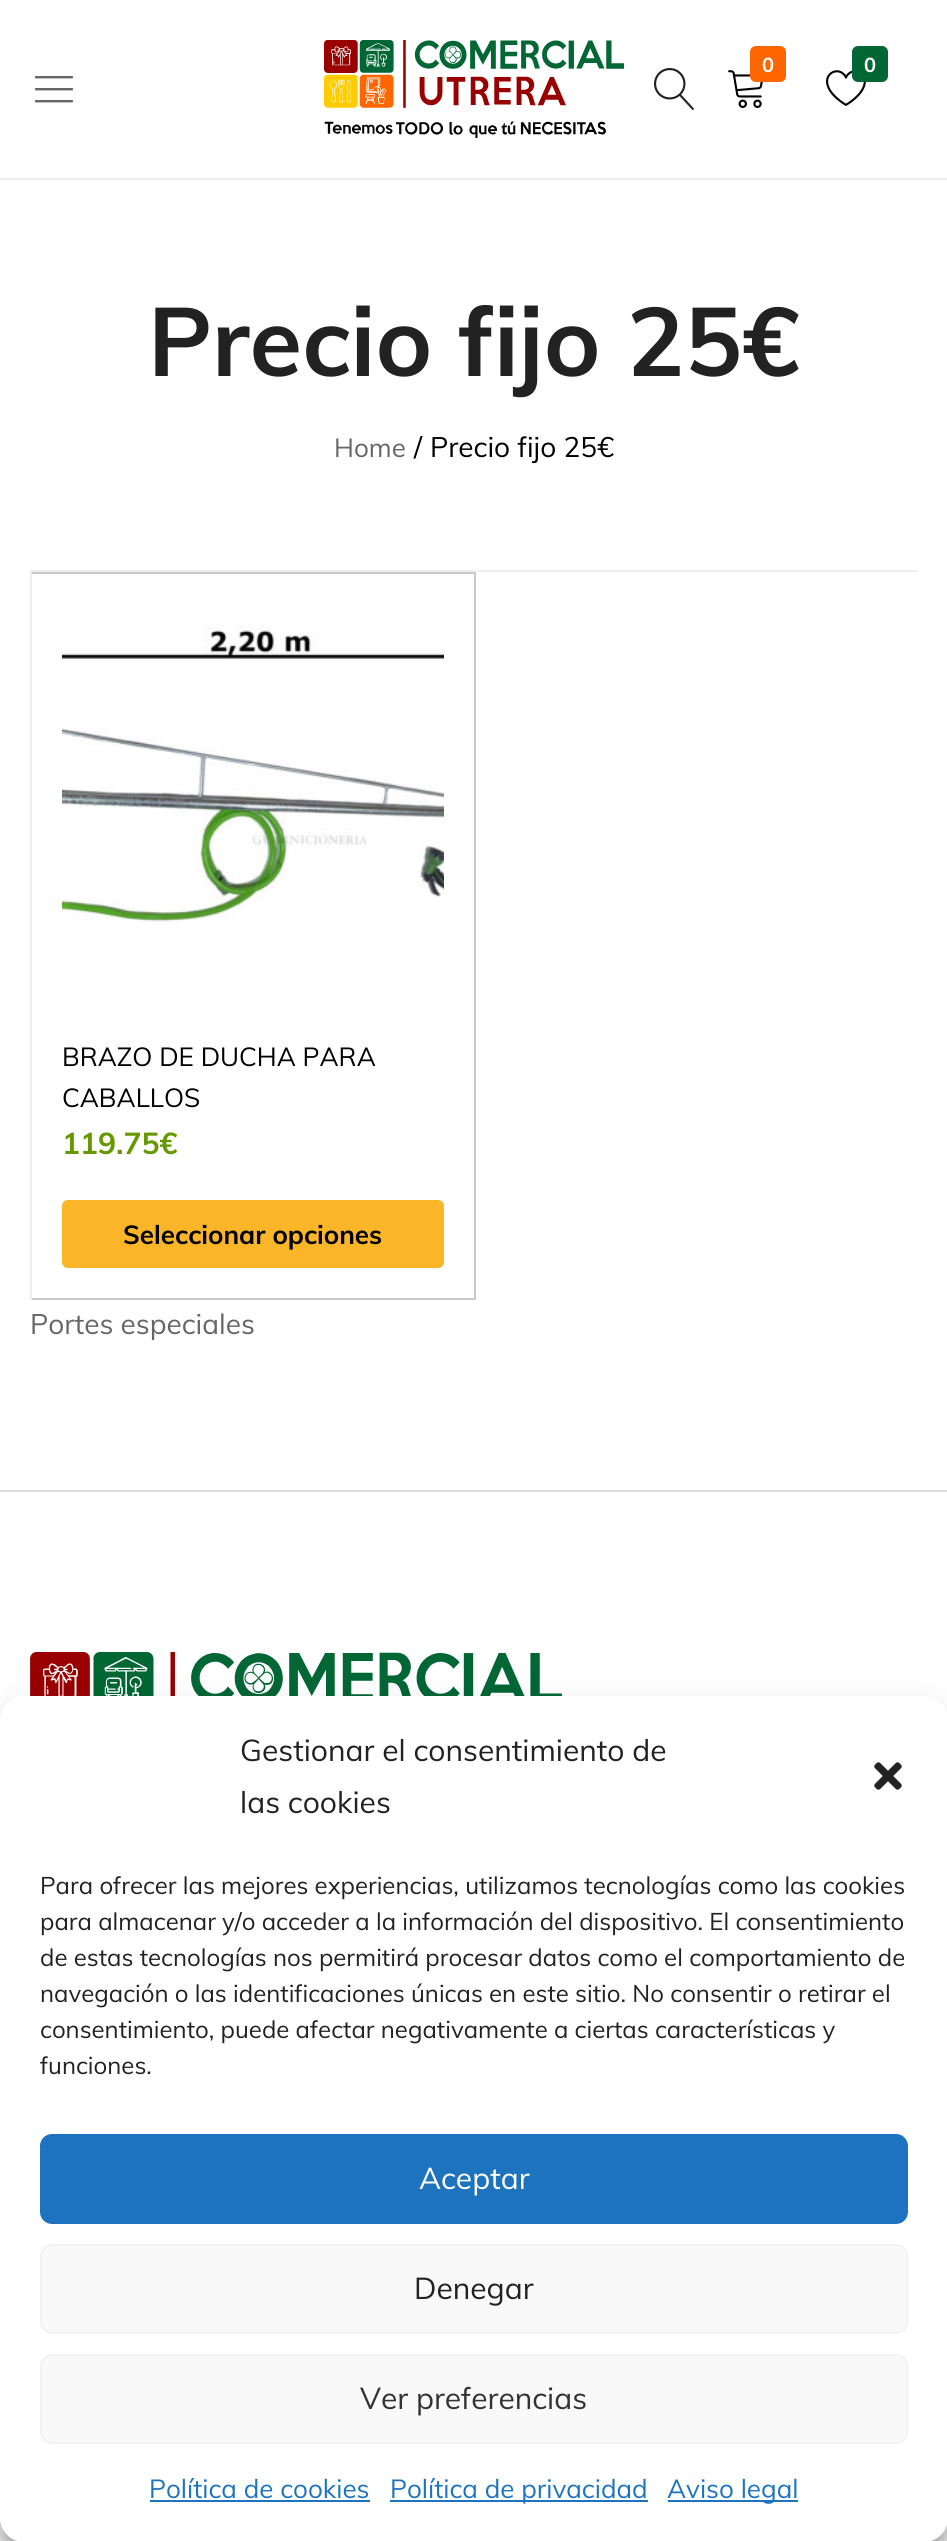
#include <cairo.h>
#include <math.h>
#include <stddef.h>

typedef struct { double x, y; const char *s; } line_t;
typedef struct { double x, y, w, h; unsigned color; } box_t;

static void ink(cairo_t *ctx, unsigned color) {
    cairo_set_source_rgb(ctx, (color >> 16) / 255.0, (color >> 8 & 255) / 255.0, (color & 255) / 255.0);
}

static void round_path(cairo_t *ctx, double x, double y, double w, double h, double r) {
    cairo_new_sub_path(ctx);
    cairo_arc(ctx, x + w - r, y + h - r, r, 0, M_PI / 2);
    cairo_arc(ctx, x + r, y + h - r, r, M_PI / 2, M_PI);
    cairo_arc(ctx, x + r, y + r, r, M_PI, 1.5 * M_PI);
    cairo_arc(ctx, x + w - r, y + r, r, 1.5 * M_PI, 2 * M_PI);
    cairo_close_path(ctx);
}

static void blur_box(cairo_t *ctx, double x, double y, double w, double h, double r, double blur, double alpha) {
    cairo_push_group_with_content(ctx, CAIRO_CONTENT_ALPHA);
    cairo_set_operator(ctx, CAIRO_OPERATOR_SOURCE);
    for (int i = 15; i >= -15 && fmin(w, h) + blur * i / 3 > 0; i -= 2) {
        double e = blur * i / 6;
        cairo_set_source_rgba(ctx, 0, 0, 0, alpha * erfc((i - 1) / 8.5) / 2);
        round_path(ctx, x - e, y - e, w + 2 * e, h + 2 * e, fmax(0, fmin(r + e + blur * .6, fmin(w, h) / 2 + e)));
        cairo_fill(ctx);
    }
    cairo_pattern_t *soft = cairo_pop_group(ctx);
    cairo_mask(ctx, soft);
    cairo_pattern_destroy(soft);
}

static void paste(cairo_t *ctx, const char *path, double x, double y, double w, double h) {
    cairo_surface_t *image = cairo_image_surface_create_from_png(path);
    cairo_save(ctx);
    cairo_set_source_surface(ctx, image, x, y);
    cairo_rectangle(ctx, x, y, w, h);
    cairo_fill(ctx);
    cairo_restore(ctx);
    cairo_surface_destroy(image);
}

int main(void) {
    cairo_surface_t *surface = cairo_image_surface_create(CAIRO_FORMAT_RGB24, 947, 2541);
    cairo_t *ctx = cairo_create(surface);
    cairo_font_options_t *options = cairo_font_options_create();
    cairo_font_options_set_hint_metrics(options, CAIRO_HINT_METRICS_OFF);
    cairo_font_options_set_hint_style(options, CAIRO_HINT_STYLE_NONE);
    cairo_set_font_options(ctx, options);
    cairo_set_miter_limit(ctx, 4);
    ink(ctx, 0xFFFFFF);
    cairo_paint(ctx);
    ink(ctx, 0xEEEEEE);
    cairo_rectangle(ctx, 0, 178, 947, 2);
    cairo_fill(ctx);
    paste(ctx, "media/1.png", 324, 40, 300, 98);
    paste(ctx, "media/2.png", 728, 70, 35, 38);
    ink(ctx, 0xFF6600);
    round_path(ctx, 750, 46, 36, 36, 6);
    cairo_fill(ctx);
    cairo_select_font_face(ctx, "Muli", CAIRO_FONT_SLANT_NORMAL, CAIRO_FONT_WEIGHT_BOLD);
    cairo_set_font_size(ctx, 20);
    ink(ctx, 0xFFFFFF);
    cairo_move_to(ctx, 762, 72);
    cairo_show_text(ctx, "0");
    paste(ctx, "media/3.png", 826, 70, 40, 36);
    ink(ctx, 0x026635);
    round_path(ctx, 852, 46, 36, 36, 6);
    cairo_fill(ctx);
    ink(ctx, 0xFFFFFF);
    cairo_move_to(ctx, 864, 72);
    cairo_show_text(ctx, "0");
    paste(ctx, "media/4.png", 654, 68, 40, 42);
    paste(ctx, "media/5.png", 34, 76, 40, 27);
    cairo_set_font_size(ctx, 96);
    ink(ctx, 0x222222);
    cairo_move_to(ctx, 148, 376);
    cairo_show_text(ctx, "Precio fijo 25€");
    cairo_select_font_face(ctx, "Muli", CAIRO_FONT_SLANT_NORMAL, CAIRO_FONT_WEIGHT_NORMAL);
    cairo_set_font_size(ctx, 26);
    ink(ctx, 0x666666);
    cairo_move_to(ctx, 334, 457);
    cairo_show_text(ctx, "Home");
    cairo_set_font_size(ctx, 28);
    ink(ctx, 0x000000);
    cairo_move_to(ctx, 414, 457);
    cairo_show_text(ctx, "/");
    cairo_move_to(ctx, 430, 457);
    cairo_show_text(ctx, "Precio fijo 25€");
    {
        static const box_t items[] = {
            {30, 570, 888, 2, 0xEEEEEE},
            {30, 570, 2, 730, 0xEEEEEE},
            {32, 572, 444, 2, 0xC9C9C9},
            {474, 572, 2, 728, 0xC9C9C9},
            {32, 1298, 444, 2, 0xC9C9C9},
        };
        for (size_t i = 0; i < sizeof items / sizeof *items; i++) {
            ink(ctx, items[i].color);
            cairo_rectangle(ctx, items[i].x, items[i].y, items[i].w, items[i].h);
            cairo_fill(ctx);
        }
    }
    paste(ctx, "media/6.png", 62, 624, 382, 299);
    cairo_set_font_size(ctx, 26);
    ink(ctx, 0x000000);
    cairo_move_to(ctx, 62, 1066);
    cairo_show_text(ctx, "BRAZO DE DUCHA PARA");
    cairo_move_to(ctx, 62, 1107);
    cairo_show_text(ctx, "CABALLOS");
    cairo_select_font_face(ctx, "Muli", CAIRO_FONT_SLANT_NORMAL, CAIRO_FONT_WEIGHT_BOLD);
    cairo_set_font_size(ctx, 30);
    ink(ctx, 0x669900);
    cairo_move_to(ctx, 62, 1154);
    cairo_show_text(ctx, "119.75€");
    ink(ctx, 0xFAB528);
    round_path(ctx, 62, 1200, 382, 68, 6);
    cairo_fill(ctx);
    cairo_set_font_size(ctx, 26);
    ink(ctx, 0x000000);
    cairo_move_to(ctx, 123, 1244);
    cairo_show_text(ctx, "Seleccionar opciones");
    cairo_select_font_face(ctx, "Muli", CAIRO_FONT_SLANT_NORMAL, CAIRO_FONT_WEIGHT_NORMAL);
    cairo_set_font_size(ctx, 28);
    ink(ctx, 0x666666);
    cairo_move_to(ctx, 30, 1334);
    cairo_show_text(ctx, "Portes especiales");
    ink(ctx, 0xDCDCDC);
    cairo_rectangle(ctx, 0, 1490, 947, 2);
    cairo_fill(ctx);
    paste(ctx, "media/7.png", 30, 1652, 532, 44);
    ink(ctx, 0x000000);
    blur_box(ctx, 0, 1708, 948, 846, 24, 6, 0.23);
    blur_box(ctx, 0, 1716, 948, 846, 24, 20, 0.19);
    ink(ctx, 0xFFFFFF);
    round_path(ctx, 0, 1696, 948, 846, 24);
    cairo_fill(ctx);
    cairo_set_font_size(ctx, 30);
    ink(ctx, 0x222222);
    cairo_move_to(ctx, 240, 1761);
    cairo_show_text(ctx, "Gestionar el consentimiento de");
    cairo_move_to(ctx, 240, 1813);
    cairo_show_text(ctx, "las cookies");
    paste(ctx, "media/8.png", 874, 1762, 28, 28);
    cairo_set_font_size(ctx, 24);
    {
        static const line_t items[] = {
            {40, 1894, "Para ofrecer las mejores experiencias, utilizamos tecnologías como las cookies"},
            {40, 1930, "para almacenar y/o acceder a la información del dispositivo. El consentimiento"},
            {40, 1966, "de estas tecnologías nos permitirá procesar datos como el comportamiento de"},
            {40, 2002, "navegación o las identificaciones únicas en este sitio. No consentir o retirar el"},
            {40, 2038, "consentimiento, puede afectar negativamente a ciertas características y"},
            {40, 2074, "funciones."},
        };
        for (size_t i = 0; i < sizeof items / sizeof *items; i++) {
            cairo_move_to(ctx, items[i].x, items[i].y);
            cairo_show_text(ctx, items[i].s);
        }
    }
    ink(ctx, 0x1E73BE);
    round_path(ctx, 41, 2135, 866, 88, 11);
    cairo_fill_preserve(ctx);
    cairo_stroke(ctx);
    cairo_set_font_size(ctx, 30);
    ink(ctx, 0xFFFFFF);
    cairo_move_to(ctx, 419, 2189);
    cairo_show_text(ctx, "Aceptar");
    ink(ctx, 0xF9F9F9);
    round_path(ctx, 41, 2245, 866, 88, 11);
    cairo_fill_preserve(ctx);
    ink(ctx, 0xF2F2F2);
    cairo_stroke(ctx);
    ink(ctx, 0x222222);
    cairo_move_to(ctx, 414, 2299);
    cairo_show_text(ctx, "Denegar");
    ink(ctx, 0xF9F9F9);
    round_path(ctx, 41, 2355, 866, 88, 11);
    cairo_fill_preserve(ctx);
    ink(ctx, 0xF2F2F2);
    cairo_stroke(ctx);
    ink(ctx, 0x333333);
    cairo_move_to(ctx, 360, 2409);
    cairo_show_text(ctx, "Ver preferencias");
    cairo_set_font_size(ctx, 26);
    ink(ctx, 0x1E73BE);
    cairo_move_to(ctx, 149, 2498);
    cairo_show_text(ctx, "Política de cookies");
    cairo_rectangle(ctx, 150, 2500, 220, 2);
    cairo_fill(ctx);
    cairo_rectangle(ctx, 390, 2500, 258, 2);
    cairo_fill(ctx);
    cairo_move_to(ctx, 390, 2498);
    cairo_show_text(ctx, "Política de privacidad");
    cairo_rectangle(ctx, 668, 2500, 130, 2);
    cairo_fill(ctx);
    cairo_move_to(ctx, 667, 2498);
    cairo_show_text(ctx, "Aviso legal");
    cairo_surface_write_to_png(surface, "image.png");
    cairo_font_options_destroy(options);
    cairo_destroy(ctx);
    cairo_surface_destroy(surface);
    return 0;
}
